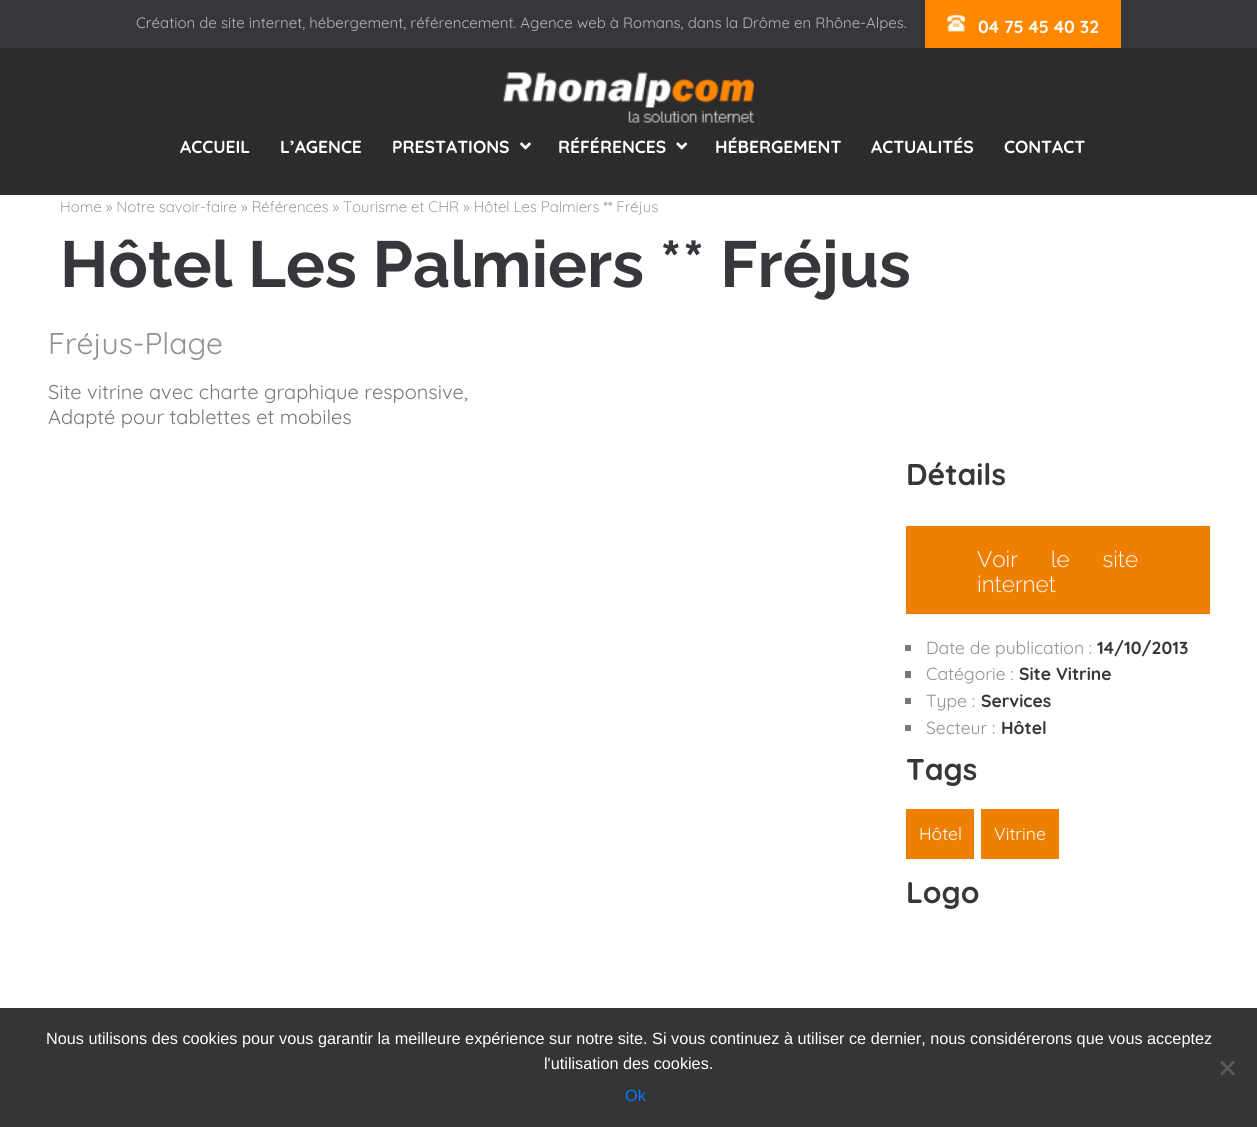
#include <cairo.h>
#include <math.h>
#include <stddef.h>

typedef struct { double x, y; const char *s; } line_t;

static void ink(cairo_t *ctx, unsigned color) {
    cairo_set_source_rgb(ctx, (color >> 16) / 255.0, (color >> 8 & 255) / 255.0, (color & 255) / 255.0);
}

static void write_spaced(cairo_t *ctx, double x, double y, const char *s, double letter, double word) {
    cairo_move_to(ctx, x, y);
    while (*s) {
        char ch[5] = {0};
        int n = 0;
        do ch[n++] = *s++; while ((*s & 0xC0) == 0x80);
        cairo_show_text(ctx, ch);
        cairo_rel_move_to(ctx, letter + word * (*ch == ' '), 0);
    }
}

static void paste(cairo_t *ctx, const char *path, double x, double y, double w, double h) {
    cairo_surface_t *image = cairo_image_surface_create_from_png(path);
    cairo_save(ctx);
    cairo_set_source_surface(ctx, image, x, y);
    cairo_rectangle(ctx, x, y, w, h);
    cairo_fill(ctx);
    cairo_restore(ctx);
    cairo_surface_destroy(image);
}

int main(void) {
    cairo_surface_t *surface = cairo_image_surface_create(CAIRO_FORMAT_RGB24, 1257, 1127);
    cairo_t *ctx = cairo_create(surface);
    cairo_font_options_t *options = cairo_font_options_create();
    cairo_font_options_set_hint_metrics(options, CAIRO_HINT_METRICS_OFF);
    cairo_font_options_set_hint_style(options, CAIRO_HINT_STYLE_NONE);
    cairo_set_font_options(ctx, options);
    cairo_set_miter_limit(ctx, 4);
    ink(ctx, 0xFFFFFF);
    cairo_paint(ctx);
    ink(ctx, 0x38363A);
    cairo_rectangle(ctx, 0, 0, 1257, 48);
    cairo_fill(ctx);
    cairo_select_font_face(ctx, "Quicksand", CAIRO_FONT_SLANT_NORMAL, CAIRO_FONT_WEIGHT_NORMAL);
    cairo_set_font_size(ctx, 15);
    ink(ctx, 0xB8B8B8);
    cairo_move_to(ctx, 136, 28);
    cairo_show_text(ctx, "Création de site internet, hébergement, référencement. Agence web à Romans, dans la Drôme en Rhône-Alpes.");
    ink(ctx, 0xFF8800);
    cairo_rectangle(ctx, 925, 0, 196, 48);
    cairo_fill(ctx);
    paste(ctx, "media/1.png", 947, 14, 18, 18);
    cairo_select_font_face(ctx, "Quicksand", CAIRO_FONT_SLANT_NORMAL, CAIRO_FONT_WEIGHT_BOLD);
    cairo_set_font_size(ctx, 17.5);
    ink(ctx, 0xFFFFFF);
    cairo_move_to(ctx, 978, 33);
    cairo_show_text(ctx, "04 75 45 40 32");
    ink(ctx, 0x2E2B2F);
    cairo_rectangle(ctx, 0, 48, 1257, 147);
    cairo_fill(ctx);
    paste(ctx, "media/2.png", 503, 72, 251, 51);
    ink(ctx, 0xFFFFFF);
    {
        static const line_t items[] = {
            {180, 153, "ACCUEIL"},
            {280, 153, "L’AGENCE"},
            {392, 153, "PRESTATIONS"},
        };
        for (size_t i = 0; i < sizeof items / sizeof *items; i++) {
            cairo_move_to(ctx, items[i].x, items[i].y);
            cairo_show_text(ctx, items[i].s);
        }
    }
    paste(ctx, "media/3.png", 520, 142, 11, 8);
    cairo_move_to(ctx, 558, 153);
    cairo_show_text(ctx, "RÉFÉRENCES");
    paste(ctx, "media/4.png", 676, 142, 12, 8);
    {
        static const line_t items[] = {
            {715, 153, "HÉBERGEMENT"},
            {871, 153, "ACTUALITÉS"},
            {1004, 153, "CONTACT"},
        };
        for (size_t i = 0; i < sizeof items / sizeof *items; i++) {
            cairo_move_to(ctx, items[i].x, items[i].y);
            cairo_show_text(ctx, items[i].s);
        }
    }
    cairo_select_font_face(ctx, "Quicksand Light", CAIRO_FONT_SLANT_NORMAL, CAIRO_FONT_WEIGHT_NORMAL);
    cairo_set_font_size(ctx, 15);
    ink(ctx, 0x777777);
    cairo_move_to(ctx, 60, 212);
    cairo_show_text(ctx, "Home » Notre savoir-faire » Références » Tourisme et CHR » Hôtel Les Palmiers ** Fréjus");
    cairo_select_font_face(ctx, "Raleway", CAIRO_FONT_SLANT_NORMAL, CAIRO_FONT_WEIGHT_BOLD);
    cairo_set_font_size(ctx, 65);
    ink(ctx, 0x38363A);
    cairo_move_to(ctx, 60, 287);
    cairo_show_text(ctx, "Hôtel Les Palmiers ** Fréjus");
    cairo_select_font_face(ctx, "Quicksand", CAIRO_FONT_SLANT_NORMAL, CAIRO_FONT_WEIGHT_NORMAL);
    cairo_set_font_size(ctx, 30);
    ink(ctx, 0x908F91);
    cairo_move_to(ctx, 48, 354);
    cairo_show_text(ctx, "Fréjus-Plage");
    cairo_set_font_size(ctx, 20);
    ink(ctx, 0x777777);
    cairo_move_to(ctx, 48, 399);
    cairo_show_text(ctx, "Site vitrine avec charte graphique responsive,");
    cairo_move_to(ctx, 48, 424);
    cairo_show_text(ctx, "Adapté pour tablettes et mobiles");
    cairo_select_font_face(ctx, "Quicksand", CAIRO_FONT_SLANT_NORMAL, CAIRO_FONT_WEIGHT_BOLD);
    cairo_set_font_size(ctx, 30);
    ink(ctx, 0x38363A);
    cairo_move_to(ctx, 906, 485);
    cairo_show_text(ctx, "Détails");
    ink(ctx, 0xEE7F01);
    cairo_rectangle(ctx, 906, 526, 304, 88);
    cairo_fill(ctx);
    cairo_select_font_face(ctx, "Raleway Light", CAIRO_FONT_SLANT_NORMAL, CAIRO_FONT_WEIGHT_NORMAL);
    cairo_set_font_size(ctx, 22.5);
    ink(ctx, 0xFFFFFF);
    write_spaced(ctx, 977, 567, "Voir le site", 0, 27);
    cairo_move_to(ctx, 977, 592);
    cairo_show_text(ctx, "internet");
    ink(ctx, 0x777777);
    cairo_rectangle(ctx, 905, 645, 6, 6);
    cairo_fill(ctx);
    cairo_select_font_face(ctx, "Quicksand", CAIRO_FONT_SLANT_NORMAL, CAIRO_FONT_WEIGHT_NORMAL);
    cairo_set_font_size(ctx, 17.5);
    ink(ctx, 0x908F91);
    cairo_move_to(ctx, 926, 654);
    cairo_show_text(ctx, "Date de publication :");
    cairo_select_font_face(ctx, "Quicksand", CAIRO_FONT_SLANT_NORMAL, CAIRO_FONT_WEIGHT_BOLD);
    ink(ctx, 0x38363A);
    cairo_move_to(ctx, 1097, 654);
    cairo_show_text(ctx, "14/10/2013");
    ink(ctx, 0x777777);
    cairo_rectangle(ctx, 905, 671, 6, 7);
    cairo_fill(ctx);
    cairo_select_font_face(ctx, "Quicksand", CAIRO_FONT_SLANT_NORMAL, CAIRO_FONT_WEIGHT_NORMAL);
    ink(ctx, 0x908F91);
    cairo_move_to(ctx, 926, 680);
    cairo_show_text(ctx, "Catégorie :");
    cairo_select_font_face(ctx, "Quicksand", CAIRO_FONT_SLANT_NORMAL, CAIRO_FONT_WEIGHT_BOLD);
    ink(ctx, 0x38363A);
    cairo_move_to(ctx, 1019, 680);
    cairo_show_text(ctx, "Site Vitrine");
    ink(ctx, 0x777777);
    cairo_rectangle(ctx, 905, 698, 6, 6);
    cairo_fill(ctx);
    cairo_select_font_face(ctx, "Quicksand", CAIRO_FONT_SLANT_NORMAL, CAIRO_FONT_WEIGHT_NORMAL);
    ink(ctx, 0x908F91);
    cairo_move_to(ctx, 926, 707);
    cairo_show_text(ctx, "Type :");
    cairo_select_font_face(ctx, "Quicksand", CAIRO_FONT_SLANT_NORMAL, CAIRO_FONT_WEIGHT_BOLD);
    ink(ctx, 0x38363A);
    cairo_move_to(ctx, 981, 707);
    cairo_show_text(ctx, "Services");
    ink(ctx, 0x777777);
    cairo_rectangle(ctx, 905, 725, 6, 6);
    cairo_fill(ctx);
    cairo_select_font_face(ctx, "Quicksand", CAIRO_FONT_SLANT_NORMAL, CAIRO_FONT_WEIGHT_NORMAL);
    ink(ctx, 0x908F91);
    cairo_move_to(ctx, 926, 734);
    cairo_show_text(ctx, "Secteur :");
    cairo_select_font_face(ctx, "Quicksand", CAIRO_FONT_SLANT_NORMAL, CAIRO_FONT_WEIGHT_BOLD);
    ink(ctx, 0x38363A);
    cairo_move_to(ctx, 1001, 734);
    cairo_show_text(ctx, "Hôtel");
    cairo_set_font_size(ctx, 30);
    cairo_move_to(ctx, 906, 780);
    cairo_show_text(ctx, "Tags");
    ink(ctx, 0xEE7F01);
    cairo_rectangle(ctx, 906, 809, 68, 50);
    cairo_fill(ctx);
    cairo_select_font_face(ctx, "Quicksand", CAIRO_FONT_SLANT_NORMAL, CAIRO_FONT_WEIGHT_NORMAL);
    cairo_set_font_size(ctx, 17.5);
    ink(ctx, 0xFFFFFF);
    cairo_move_to(ctx, 919, 840);
    cairo_show_text(ctx, "Hôtel");
    ink(ctx, 0xEE7F01);
    cairo_rectangle(ctx, 981, 809, 78, 50);
    cairo_fill(ctx);
    ink(ctx, 0xFFFFFF);
    cairo_move_to(ctx, 994, 840);
    cairo_show_text(ctx, "Vitrine");
    cairo_select_font_face(ctx, "Quicksand", CAIRO_FONT_SLANT_NORMAL, CAIRO_FONT_WEIGHT_BOLD);
    cairo_set_font_size(ctx, 30);
    ink(ctx, 0x38363A);
    cairo_move_to(ctx, 906, 903);
    cairo_show_text(ctx, "Logo");
    ink(ctx, 0x353535);
    cairo_rectangle(ctx, 0, 1008, 1257, 119);
    cairo_fill(ctx);
    cairo_select_font_face(ctx, "Liberation Sans", CAIRO_FONT_SLANT_NORMAL, CAIRO_FONT_WEIGHT_NORMAL);
    cairo_set_font_size(ctx, 16.25);
    ink(ctx, 0xFFFFFF);
    cairo_move_to(ctx, 46, 1044);
    cairo_show_text(ctx, "Nous utilisons des cookies pour vous garantir la meilleure expérience sur notre site. Si vous continuez à utiliser ce dernier, nous considérerons que vous acceptez");
    cairo_move_to(ctx, 544, 1069);
    cairo_show_text(ctx, "l'utilisation des cookies.");
    ink(ctx, 0x5B5B5B);
    cairo_new_path(ctx);
    cairo_move_to(ctx, 1233, 1060.5);
    cairo_line_to(ctx, 1235, 1062.5);
    cairo_line_to(ctx, 1222, 1075.5);
    cairo_line_to(ctx, 1220, 1074);
    cairo_close_path(ctx);
    cairo_fill(ctx);
    cairo_new_path(ctx);
    cairo_move_to(ctx, 1220, 1062.5);
    cairo_line_to(ctx, 1222, 1060.5);
    cairo_line_to(ctx, 1235, 1074);
    cairo_line_to(ctx, 1233, 1075.5);
    cairo_close_path(ctx);
    cairo_fill(ctx);
    ink(ctx, 0x007BFF);
    cairo_move_to(ctx, 625, 1101);
    cairo_show_text(ctx, "Ok");
    cairo_surface_write_to_png(surface, "image.png");
    cairo_font_options_destroy(options);
    cairo_destroy(ctx);
    cairo_surface_destroy(surface);
    return 0;
}
